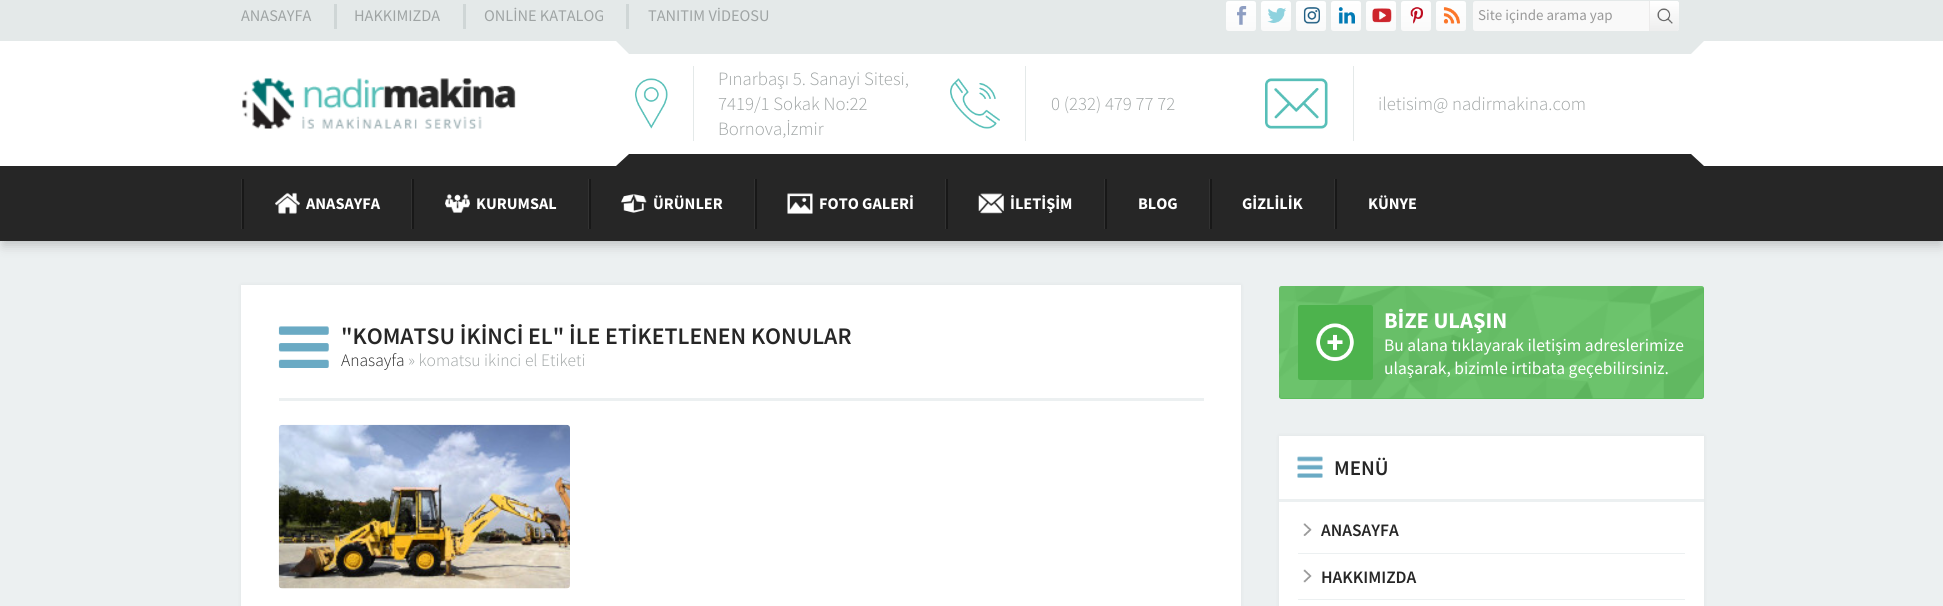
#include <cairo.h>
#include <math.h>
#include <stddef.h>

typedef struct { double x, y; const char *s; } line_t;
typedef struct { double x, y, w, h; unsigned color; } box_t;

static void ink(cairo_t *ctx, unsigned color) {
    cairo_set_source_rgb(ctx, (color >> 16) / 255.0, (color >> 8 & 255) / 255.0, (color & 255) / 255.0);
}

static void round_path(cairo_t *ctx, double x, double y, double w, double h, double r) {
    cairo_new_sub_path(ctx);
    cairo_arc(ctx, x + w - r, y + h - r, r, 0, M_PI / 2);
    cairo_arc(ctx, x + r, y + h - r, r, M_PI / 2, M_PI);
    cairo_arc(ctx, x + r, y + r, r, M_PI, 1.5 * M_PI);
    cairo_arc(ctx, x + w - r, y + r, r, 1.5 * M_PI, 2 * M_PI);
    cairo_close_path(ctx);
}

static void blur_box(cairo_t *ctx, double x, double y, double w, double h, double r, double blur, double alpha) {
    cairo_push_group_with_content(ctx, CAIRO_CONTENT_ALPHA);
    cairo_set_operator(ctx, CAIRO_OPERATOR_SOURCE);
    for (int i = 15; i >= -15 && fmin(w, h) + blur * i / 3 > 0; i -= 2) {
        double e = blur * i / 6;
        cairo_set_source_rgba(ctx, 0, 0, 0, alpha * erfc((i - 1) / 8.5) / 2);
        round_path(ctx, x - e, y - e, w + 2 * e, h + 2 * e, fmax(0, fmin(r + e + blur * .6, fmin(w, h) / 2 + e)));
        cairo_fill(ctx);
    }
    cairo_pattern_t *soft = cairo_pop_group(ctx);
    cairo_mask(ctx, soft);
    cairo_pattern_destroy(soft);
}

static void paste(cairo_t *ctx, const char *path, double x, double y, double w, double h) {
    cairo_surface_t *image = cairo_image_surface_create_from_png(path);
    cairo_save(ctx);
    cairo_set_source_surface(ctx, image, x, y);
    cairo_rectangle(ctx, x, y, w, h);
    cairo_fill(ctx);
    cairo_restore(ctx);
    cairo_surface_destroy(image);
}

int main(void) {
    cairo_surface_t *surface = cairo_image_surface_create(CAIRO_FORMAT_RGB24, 1943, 606);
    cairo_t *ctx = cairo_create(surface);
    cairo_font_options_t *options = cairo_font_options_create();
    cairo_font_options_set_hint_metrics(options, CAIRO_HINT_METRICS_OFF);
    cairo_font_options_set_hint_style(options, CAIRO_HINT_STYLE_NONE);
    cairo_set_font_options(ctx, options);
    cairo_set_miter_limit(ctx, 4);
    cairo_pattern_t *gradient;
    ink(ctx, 0xECF0F1);
    cairo_paint(ctx);
    ink(ctx, 0x000000);
    blur_box(ctx, 3, 175, 1938, 70, 0, 6, 0.2);
    ink(ctx, 0xFFFFFF);
    cairo_rectangle(ctx, 0, 41, 1943, 125);
    cairo_fill(ctx);
    ink(ctx, 0xE4E9E9);
    cairo_rectangle(ctx, 0, 0, 1943, 41);
    cairo_fill(ctx);
    cairo_select_font_face(ctx, "Source Sans Pro", CAIRO_FONT_SLANT_NORMAL, CAIRO_FONT_WEIGHT_NORMAL);
    cairo_set_font_size(ctx, 16.25);
    ink(ctx, 0x9FA4A4);
    cairo_move_to(ctx, 241, 21);
    cairo_show_text(ctx, "ANASAYFA");
    ink(ctx, 0xCFD6D6);
    cairo_rectangle(ctx, 334, 4, 3, 25);
    cairo_fill(ctx);
    ink(ctx, 0x9FA4A4);
    cairo_move_to(ctx, 354, 21);
    cairo_show_text(ctx, "HAKKIMIZDA");
    ink(ctx, 0xCFD6D6);
    cairo_rectangle(ctx, 463, 4, 3, 25);
    cairo_fill(ctx);
    ink(ctx, 0x9FA4A4);
    cairo_move_to(ctx, 484, 21);
    cairo_show_text(ctx, "ONLİNE KATALOG");
    ink(ctx, 0xCFD6D6);
    cairo_rectangle(ctx, 626, 4, 3, 25);
    cairo_fill(ctx);
    ink(ctx, 0x9FA4A4);
    cairo_move_to(ctx, 648, 21);
    cairo_show_text(ctx, "TANITIM VİDEOSU");
    gradient = cairo_pattern_create_linear(1241, 31, 1241, 1.2);
    cairo_pattern_add_color_stop_rgba(gradient, 0, 0.98, 0.98, 0.98, 1);
    cairo_pattern_add_color_stop_rgba(gradient, 1, 1, 1, 1, 1);
    cairo_set_source(ctx, gradient);
    cairo_pattern_destroy(gradient);
    round_path(ctx, 1226, 1, 30, 30, 2.5);
    cairo_fill(ctx);
    paste(ctx, "media/1.png", 1237, 6, 10, 19);
    gradient = cairo_pattern_create_linear(1276, 31, 1276, 1.2);
    cairo_pattern_add_color_stop_rgba(gradient, 0, 0.98, 0.98, 0.98, 1);
    cairo_pattern_add_color_stop_rgba(gradient, 1, 1, 1, 1, 1);
    cairo_set_source(ctx, gradient);
    cairo_pattern_destroy(gradient);
    round_path(ctx, 1261, 1, 30, 30, 2.5);
    cairo_fill(ctx);
    paste(ctx, "media/2.png", 1267, 8, 19, 15);
    gradient = cairo_pattern_create_linear(1311, 31, 1311, 1.2);
    cairo_pattern_add_color_stop_rgba(gradient, 0, 0.98, 0.98, 0.98, 1);
    cairo_pattern_add_color_stop_rgba(gradient, 1, 1, 1, 1, 1);
    cairo_set_source(ctx, gradient);
    cairo_pattern_destroy(gradient);
    round_path(ctx, 1296, 1, 30, 30, 2.5);
    cairo_fill(ctx);
    paste(ctx, "media/3.png", 1303, 7, 17, 17);
    gradient = cairo_pattern_create_linear(1346, 31, 1346, 1.2);
    cairo_pattern_add_color_stop_rgba(gradient, 0, 0.98, 0.98, 0.98, 1);
    cairo_pattern_add_color_stop_rgba(gradient, 1, 1, 1, 1, 1);
    cairo_set_source(ctx, gradient);
    cairo_pattern_destroy(gradient);
    round_path(ctx, 1331, 1, 30, 30, 2.5);
    cairo_fill(ctx);
    paste(ctx, "media/4.png", 1338, 7, 17, 17);
    gradient = cairo_pattern_create_linear(1381, 31, 1381, 1.2);
    cairo_pattern_add_color_stop_rgba(gradient, 0, 0.98, 0.98, 0.98, 1);
    cairo_pattern_add_color_stop_rgba(gradient, 1, 1, 1, 1, 1);
    cairo_set_source(ctx, gradient);
    cairo_pattern_destroy(gradient);
    round_path(ctx, 1366, 1, 30, 30, 2.5);
    cairo_fill(ctx);
    paste(ctx, "media/5.png", 1372, 8, 20, 15);
    gradient = cairo_pattern_create_linear(1416, 31, 1416, 1.2);
    cairo_pattern_add_color_stop_rgba(gradient, 0, 0.98, 0.98, 0.98, 1);
    cairo_pattern_add_color_stop_rgba(gradient, 1, 1, 1, 1, 1);
    cairo_set_source(ctx, gradient);
    cairo_pattern_destroy(gradient);
    round_path(ctx, 1401, 1, 30, 30, 2.5);
    cairo_fill(ctx);
    paste(ctx, "media/6.png", 1410, 7, 13, 17);
    gradient = cairo_pattern_create_linear(1451, 31, 1451, 1.2);
    cairo_pattern_add_color_stop_rgba(gradient, 0, 0.98, 0.98, 0.98, 1);
    cairo_pattern_add_color_stop_rgba(gradient, 1, 1, 1, 1, 1);
    cairo_set_source(ctx, gradient);
    cairo_pattern_destroy(gradient);
    round_path(ctx, 1436, 1, 30, 30, 2.5);
    cairo_fill(ctx);
    paste(ctx, "media/7.png", 1443, 7, 17, 17);
    ink(ctx, 0xF9F9F9);
    round_path(ctx, 1473, 1, 206, 30, 2.5);
    cairo_fill(ctx);
    cairo_set_font_size(ctx, 15);
    ink(ctx, 0x999999);
    cairo_move_to(ctx, 1478, 20);
    cairo_show_text(ctx, "Site içinde arama yap");
    gradient = cairo_pattern_create_linear(1664, 1.2, 1664, 31);
    cairo_pattern_add_color_stop_rgba(gradient, 0, 1, 1, 1, 1);
    cairo_pattern_add_color_stop_rgba(gradient, 1, 0.933, 0.933, 0.933, 1);
    cairo_set_source(ctx, gradient);
    cairo_pattern_destroy(gradient);
    cairo_new_path(ctx);
    cairo_move_to(ctx, 1649, 1);
    cairo_line_to(ctx, 1676.5, 1);
    cairo_curve_to(ctx, 1678, 1, 1679, 2, 1679, 3.5);
    cairo_line_to(ctx, 1679, 28.5);
    cairo_curve_to(ctx, 1679, 30, 1678, 31, 1676.5, 31);
    cairo_line_to(ctx, 1649, 31);
    cairo_close_path(ctx);
    cairo_fill(ctx);
    ink(ctx, 0xECEBEB);
    cairo_rectangle(ctx, 1649, 1, 1, 30);
    cairo_fill(ctx);
    paste(ctx, "media/8.png", 1657, 8, 16, 16);
    paste(ctx, "media/9.png", 242, 78, 274, 51);
    ink(ctx, 0xE4E9E9);
    cairo_rectangle(ctx, 616, 41, 1088, 13);
    cairo_fill(ctx);
    ink(ctx, 0xFFFFFF);
    cairo_new_path(ctx);
    cairo_move_to(ctx, 616, 54);
    cairo_line_to(ctx, 616, 41);
    cairo_line_to(ctx, 629, 54);
    cairo_close_path(ctx);
    cairo_fill(ctx);
    cairo_new_path(ctx);
    cairo_move_to(ctx, 1704, 54);
    cairo_line_to(ctx, 1691, 54);
    cairo_line_to(ctx, 1704, 41);
    cairo_close_path(ctx);
    cairo_fill(ctx);
    ink(ctx, 0xE4E9E9);
    cairo_rectangle(ctx, 693, 66, 1, 75);
    cairo_fill(ctx);
    paste(ctx, "media/10.png", 635, 78, 33, 51);
    cairo_select_font_face(ctx, "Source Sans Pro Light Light", CAIRO_FONT_SLANT_NORMAL, CAIRO_FONT_WEIGHT_NORMAL);
    cairo_set_font_size(ctx, 18.75);
    ink(ctx, 0x9FA4A4);
    {
        static const line_t items[] = {
            {718, 85, "Pınarbaşı 5. Sanayi Sitesi,"},
            {718, 110, "7419/1 Sokak No:22"},
            {718, 135, "Bornova,İzmir"},
        };
        for (size_t i = 0; i < sizeof items / sizeof *items; i++) {
            cairo_move_to(ctx, items[i].x, items[i].y);
            cairo_show_text(ctx, items[i].s);
        }
    }
    ink(ctx, 0xE4E9E9);
    cairo_rectangle(ctx, 1025, 66, 1, 75);
    cairo_fill(ctx);
    paste(ctx, "media/11.png", 950, 78, 50, 51);
    ink(ctx, 0x9FA4A4);
    cairo_move_to(ctx, 1051, 110);
    cairo_show_text(ctx, "0 (232) 479 77 72");
    ink(ctx, 0xE4E9E9);
    cairo_rectangle(ctx, 1353, 66, 1, 75);
    cairo_fill(ctx);
    paste(ctx, "media/12.png", 1265, 78, 63, 51);
    ink(ctx, 0x9FA4A4);
    cairo_move_to(ctx, 1378, 110);
    cairo_show_text(ctx, "iletisim@ nadirmakina.com");
    ink(ctx, 0x262626);
    cairo_rectangle(ctx, 616, 154, 1088, 12);
    cairo_fill(ctx);
    ink(ctx, 0xFFFFFF);
    cairo_new_path(ctx);
    cairo_move_to(ctx, 616, 154);
    cairo_line_to(ctx, 629, 154);
    cairo_line_to(ctx, 616, 166);
    cairo_close_path(ctx);
    cairo_fill(ctx);
    cairo_new_path(ctx);
    cairo_move_to(ctx, 1704, 154);
    cairo_line_to(ctx, 1704, 166);
    cairo_line_to(ctx, 1691, 154);
    cairo_close_path(ctx);
    cairo_fill(ctx);
    {
        static const box_t items[] = {
            {0, 166, 1943, 75, 0x262626},
            {242, 179, 2, 50, 0x181818},
            {241, 179, 1, 50, 0x323232},
        };
        for (size_t i = 0; i < sizeof items / sizeof *items; i++) {
            ink(ctx, items[i].color);
            cairo_rectangle(ctx, items[i].x, items[i].y, items[i].w, items[i].h);
            cairo_fill(ctx);
        }
    }
    paste(ctx, "media/13.png", 275, 192, 25, 22);
    cairo_select_font_face(ctx, "Source Sans Pro", CAIRO_FONT_SLANT_NORMAL, CAIRO_FONT_WEIGHT_BOLD);
    cairo_set_font_size(ctx, 16.25);
    ink(ctx, 0xFFFFFF);
    cairo_move_to(ctx, 306, 209);
    cairo_show_text(ctx, "ANASAYFA");
    ink(ctx, 0x181818);
    cairo_rectangle(ctx, 412, 179, 2, 50);
    cairo_fill(ctx);
    ink(ctx, 0x323232);
    cairo_rectangle(ctx, 411, 179, 1, 50);
    cairo_fill(ctx);
    paste(ctx, "media/14.png", 445, 194, 25, 19);
    ink(ctx, 0xFFFFFF);
    cairo_move_to(ctx, 476, 209);
    cairo_show_text(ctx, "KURUMSAL");
    ink(ctx, 0x181818);
    cairo_rectangle(ctx, 589, 179, 2, 50);
    cairo_fill(ctx);
    ink(ctx, 0x323232);
    cairo_rectangle(ctx, 588, 179, 1, 50);
    cairo_fill(ctx);
    paste(ctx, "media/15.png", 621, 194, 26, 19);
    ink(ctx, 0xFFFFFF);
    cairo_move_to(ctx, 653, 209);
    cairo_show_text(ctx, "ÜRÜNLER");
    ink(ctx, 0x181818);
    cairo_rectangle(ctx, 755, 179, 2, 50);
    cairo_fill(ctx);
    ink(ctx, 0x323232);
    cairo_rectangle(ctx, 754, 179, 1, 50);
    cairo_fill(ctx);
    paste(ctx, "media/16.png", 787, 193, 26, 21);
    ink(ctx, 0xFFFFFF);
    cairo_move_to(ctx, 819, 209);
    cairo_show_text(ctx, "FOTO GALERİ");
    ink(ctx, 0x181818);
    cairo_rectangle(ctx, 946, 179, 2, 50);
    cairo_fill(ctx);
    ink(ctx, 0x323232);
    cairo_rectangle(ctx, 945, 179, 1, 50);
    cairo_fill(ctx);
    paste(ctx, "media/17.png", 978, 193, 26, 21);
    ink(ctx, 0xFFFFFF);
    cairo_move_to(ctx, 1010, 209);
    cairo_show_text(ctx, "İLETİŞİM");
    ink(ctx, 0x181818);
    cairo_rectangle(ctx, 1105, 179, 2, 50);
    cairo_fill(ctx);
    ink(ctx, 0x323232);
    cairo_rectangle(ctx, 1104, 179, 1, 50);
    cairo_fill(ctx);
    ink(ctx, 0xFFFFFF);
    cairo_move_to(ctx, 1138, 209);
    cairo_show_text(ctx, "BLOG");
    ink(ctx, 0x181818);
    cairo_rectangle(ctx, 1210, 179, 2, 50);
    cairo_fill(ctx);
    ink(ctx, 0x323232);
    cairo_rectangle(ctx, 1209, 179, 1, 50);
    cairo_fill(ctx);
    ink(ctx, 0xFFFFFF);
    cairo_move_to(ctx, 1242, 209);
    cairo_show_text(ctx, "GİZLİLİK");
    ink(ctx, 0x181818);
    cairo_rectangle(ctx, 1335, 179, 2, 50);
    cairo_fill(ctx);
    ink(ctx, 0x323232);
    cairo_rectangle(ctx, 1334, 179, 1, 50);
    cairo_fill(ctx);
    ink(ctx, 0xFFFFFF);
    cairo_move_to(ctx, 1368, 209);
    cairo_show_text(ctx, "KÜNYE");
    ink(ctx, 0x000000);
    blur_box(ctx, 241, 285, 1000, 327, 0, 2, 0.06);
    ink(ctx, 0xFFFFFF);
    cairo_rectangle(ctx, 241, 285, 1000, 321);
    cairo_fill(ctx);
    ink(ctx, 0xECF0F1);
    cairo_rectangle(ctx, 279, 398, 925, 3);
    cairo_fill(ctx);
    paste(ctx, "media/18.png", 278, 326, 51, 42);
    cairo_select_font_face(ctx, "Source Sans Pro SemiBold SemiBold", CAIRO_FONT_SLANT_NORMAL, CAIRO_FONT_WEIGHT_NORMAL);
    cairo_set_font_size(ctx, 23.75);
    ink(ctx, 0x262626);
    cairo_move_to(ctx, 341, 344);
    cairo_show_text(ctx, "\"KOMATSU İKİNCİ EL\" İLE ETİKETLENEN KONULAR");
    cairo_select_font_face(ctx, "Source Sans Pro Light Light", CAIRO_FONT_SLANT_NORMAL, CAIRO_FONT_WEIGHT_NORMAL);
    cairo_set_font_size(ctx, 17.5);
    cairo_move_to(ctx, 341, 366);
    cairo_show_text(ctx, "Anasayfa");
    ink(ctx, 0x9FA4A4);
    cairo_move_to(ctx, 408, 366);
    cairo_show_text(ctx, "» komatsu ikinci el Etiketi");
    paste(ctx, "media/19.png", 278, 424, 292, 165);
    ink(ctx, 0x57BD57);
    round_path(ctx, 1279, 286, 425, 113, 2.5);
    cairo_fill(ctx);
    paste(ctx, "media/20.png", 1279, 286, 425, 113);
    ink(ctx, 0x4DB34D);
    round_path(ctx, 1298, 305, 75, 75, 2.5);
    cairo_fill(ctx);
    paste(ctx, "media/21.png", 1316, 323, 38, 38);
    cairo_select_font_face(ctx, "Source Sans Pro", CAIRO_FONT_SLANT_NORMAL, CAIRO_FONT_WEIGHT_BOLD);
    cairo_set_font_size(ctx, 22.5);
    ink(ctx, 0xFFFFFF);
    cairo_move_to(ctx, 1384, 328);
    cairo_show_text(ctx, "BİZE ULAŞIN");
    cairo_select_font_face(ctx, "Source Sans Pro", CAIRO_FONT_SLANT_NORMAL, CAIRO_FONT_WEIGHT_NORMAL);
    cairo_set_font_size(ctx, 17.5);
    cairo_move_to(ctx, 1384, 351);
    cairo_show_text(ctx, "Bu alana tıklayarak iletişim adreslerimize");
    cairo_move_to(ctx, 1384, 374);
    cairo_show_text(ctx, "ulaşarak, bizimle irtibata geçebilirsiniz.");
    ink(ctx, 0x000000);
    blur_box(ctx, 1279, 436, 425, 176, 0, 2, 0.06);
    ink(ctx, 0xFFFFFF);
    cairo_rectangle(ctx, 1279, 436, 425, 170);
    cairo_fill(ctx);
    ink(ctx, 0xECF0F1);
    cairo_rectangle(ctx, 1279, 499, 425, 3);
    cairo_fill(ctx);
    paste(ctx, "media/22.png", 1297, 456, 26, 22);
    cairo_select_font_face(ctx, "Source Sans Pro SemiBold SemiBold", CAIRO_FONT_SLANT_NORMAL, CAIRO_FONT_WEIGHT_NORMAL);
    cairo_set_font_size(ctx, 21);
    ink(ctx, 0x262626);
    cairo_move_to(ctx, 1334, 475);
    cairo_show_text(ctx, "MENÜ");
    ink(ctx, 0xECF0F1);
    cairo_rectangle(ctx, 1298, 553, 387, 1);
    cairo_fill(ctx);
    paste(ctx, "media/23.png", 1303, 523, 9, 13);
    cairo_set_font_size(ctx, 17.5);
    ink(ctx, 0x262626);
    cairo_move_to(ctx, 1321, 536);
    cairo_show_text(ctx, "ANASAYFA");
    ink(ctx, 0xECF0F1);
    cairo_rectangle(ctx, 1298, 599, 387, 1);
    cairo_fill(ctx);
    paste(ctx, "media/24.png", 1303, 569, 9, 14);
    ink(ctx, 0x262626);
    cairo_move_to(ctx, 1321, 583);
    cairo_show_text(ctx, "HAKKIMIZDA");
    cairo_surface_write_to_png(surface, "image.png");
    cairo_font_options_destroy(options);
    cairo_destroy(ctx);
    cairo_surface_destroy(surface);
    return 0;
}
